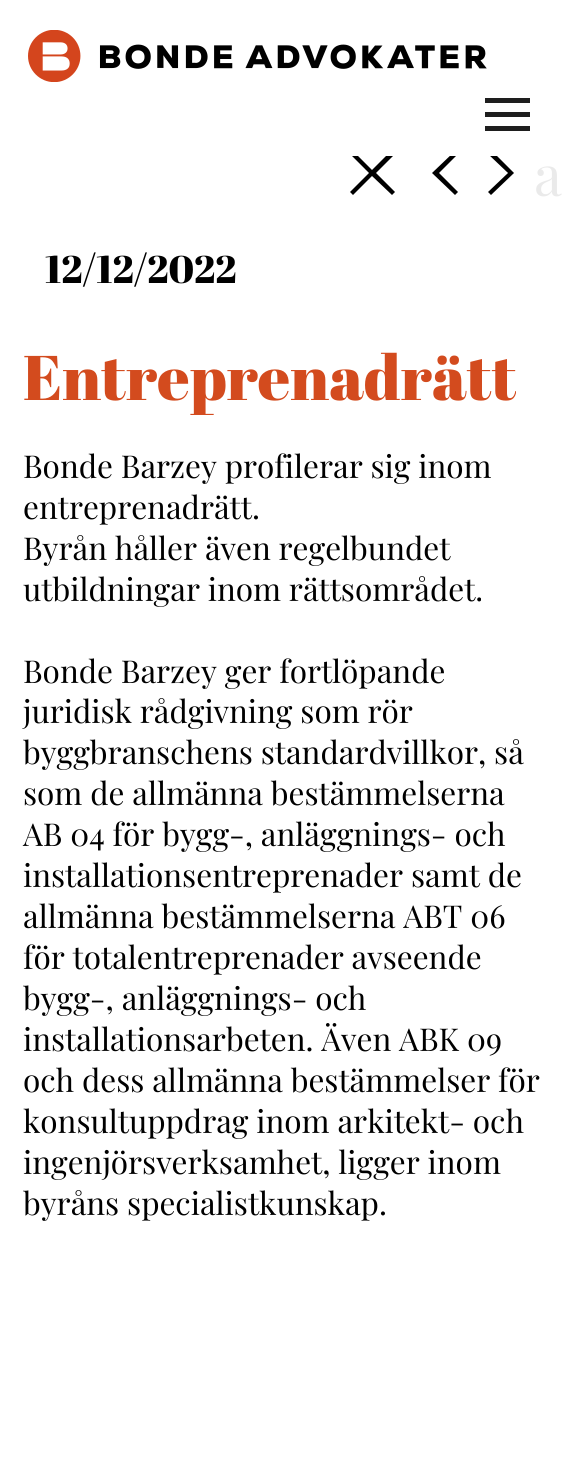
#include <cairo.h>
#include <math.h>
#include <stddef.h>

typedef struct { double x, y; const char *s; } line_t;
typedef struct { double x, y, w, h; unsigned color; } box_t;

static void ink(cairo_t *ctx, unsigned color) {
    cairo_set_source_rgb(ctx, (color >> 16) / 255.0, (color >> 8 & 255) / 255.0, (color & 255) / 255.0);
}

static void paste(cairo_t *ctx, const char *path, double x, double y, double w, double h) {
    cairo_surface_t *image = cairo_image_surface_create_from_png(path);
    cairo_save(ctx);
    cairo_set_source_surface(ctx, image, x, y);
    cairo_rectangle(ctx, x, y, w, h);
    cairo_fill(ctx);
    cairo_restore(ctx);
    cairo_surface_destroy(image);
}

int main(void) {
    cairo_surface_t *surface = cairo_image_surface_create(CAIRO_FORMAT_RGB24, 566, 1463);
    cairo_t *ctx = cairo_create(surface);
    cairo_font_options_t *options = cairo_font_options_create();
    cairo_font_options_set_hint_metrics(options, CAIRO_HINT_METRICS_OFF);
    cairo_font_options_set_hint_style(options, CAIRO_HINT_STYLE_NONE);
    cairo_set_font_options(ctx, options);
    cairo_set_miter_limit(ctx, 4);
    ink(ctx, 0xFFFFFF);
    cairo_paint(ctx);
    ink(ctx, 0x000000);
    cairo_new_path(ctx);
    cairo_move_to(ctx, 395, 192);
    cairo_line_to(ctx, 376, 173);
    cairo_line_to(ctx, 395, 154);
    cairo_line_to(ctx, 391, 151);
    cairo_line_to(ctx, 372, 170);
    cairo_line_to(ctx, 353, 151);
    cairo_line_to(ctx, 350, 154);
    cairo_line_to(ctx, 369, 173);
    cairo_line_to(ctx, 350, 192);
    cairo_line_to(ctx, 353, 195);
    cairo_line_to(ctx, 372, 176);
    cairo_line_to(ctx, 392, 195);
    cairo_close_path(ctx);
    cairo_fill(ctx);
    cairo_new_path(ctx);
    cairo_move_to(ctx, 514, 173);
    cairo_line_to(ctx, 492, 151);
    cairo_line_to(ctx, 488, 154);
    cairo_line_to(ctx, 508, 173);
    cairo_line_to(ctx, 488, 192);
    cairo_line_to(ctx, 491, 195);
    cairo_close_path(ctx);
    cairo_fill(ctx);
    cairo_new_path(ctx);
    cairo_move_to(ctx, 432, 173);
    cairo_line_to(ctx, 455, 195);
    cairo_line_to(ctx, 458, 192);
    cairo_line_to(ctx, 439, 173);
    cairo_line_to(ctx, 458, 154);
    cairo_line_to(ctx, 455, 151);
    cairo_close_path(ctx);
    cairo_fill(ctx);
    ink(ctx, 0xFFFFFF);
    cairo_rectangle(ctx, 350, 151, 147, 5);
    cairo_fill(ctx);
    paste(ctx, "media/1.png", 28, 30, 459, 52);
    {
        static const box_t items[] = {
            {485, 112, 45, 5, 0x1E1E1E},
            {485, 98, 45, 5, 0x1E1E1E},
            {485, 126, 45, 5, 0x1E1E1E},
        };
        for (size_t i = 0; i < sizeof items / sizeof *items; i++) {
            ink(ctx, items[i].color);
            cairo_rectangle(ctx, items[i].x, items[i].y, items[i].w, items[i].h);
            cairo_fill(ctx);
        }
    }
    cairo_select_font_face(ctx, "Playfair Display", CAIRO_FONT_SLANT_NORMAL, CAIRO_FONT_WEIGHT_NORMAL);
    cairo_set_font_size(ctx, 56);
    ink(ctx, 0xEAEAEA);
    cairo_move_to(ctx, 534, 196);
    cairo_show_text(ctx, "a");
    cairo_select_font_face(ctx, "Abril Fatface", CAIRO_FONT_SLANT_NORMAL, CAIRO_FONT_WEIGHT_NORMAL);
    cairo_set_font_size(ctx, 38.5);
    ink(ctx, 0x000000);
    cairo_move_to(ctx, 45, 283);
    cairo_show_text(ctx, "12/12/2022");
    cairo_set_font_size(ctx, 63);
    ink(ctx, 0xD34B1E);
    cairo_move_to(ctx, 23, 400);
    cairo_show_text(ctx, "Entreprenadrätt");
    cairo_select_font_face(ctx, "Playfair Display", CAIRO_FONT_SLANT_NORMAL, CAIRO_FONT_WEIGHT_NORMAL);
    cairo_set_font_size(ctx, 31.5);
    ink(ctx, 0x000000);
    {
        static const line_t items[] = {
            {23, 478, "Bonde Barzey profilerar sig inom"},
            {23, 519, "entreprenadrätt."},
            {23, 560, "Byrån håller även regelbundet"},
            {23, 601, "utbildningar inom rättsområdet."},
            {23, 683, "Bonde Barzey ger fortlöpande"},
            {23, 723, "juridisk rådgivning som rör"},
            {23, 764, "byggbranschens standardvillkor, så"},
            {23, 805, "som de allmänna bestämmelserna"},
            {23, 846, "AB 04 för bygg-, anläggnings- och"},
            {23, 887, "installationsentreprenader samt de"},
            {23, 928, "allmänna bestämmelserna ABT 06"},
            {23, 969, "för totalentreprenader avseende"},
            {23, 1010, "bygg-, anläggnings- och"},
            {23, 1051, "installationsarbeten. Även ABK 09"},
            {23, 1092, "och dess allmänna bestämmelser för"},
            {23, 1133, "konsultuppdrag inom arkitekt- och"},
            {23, 1174, "ingenjörsverksamhet, ligger inom"},
            {23, 1215, "byråns specialistkunskap."},
        };
        for (size_t i = 0; i < sizeof items / sizeof *items; i++) {
            cairo_move_to(ctx, items[i].x, items[i].y);
            cairo_show_text(ctx, items[i].s);
        }
    }
    cairo_surface_write_to_png(surface, "image.png");
    cairo_font_options_destroy(options);
    cairo_destroy(ctx);
    cairo_surface_destroy(surface);
    return 0;
}
